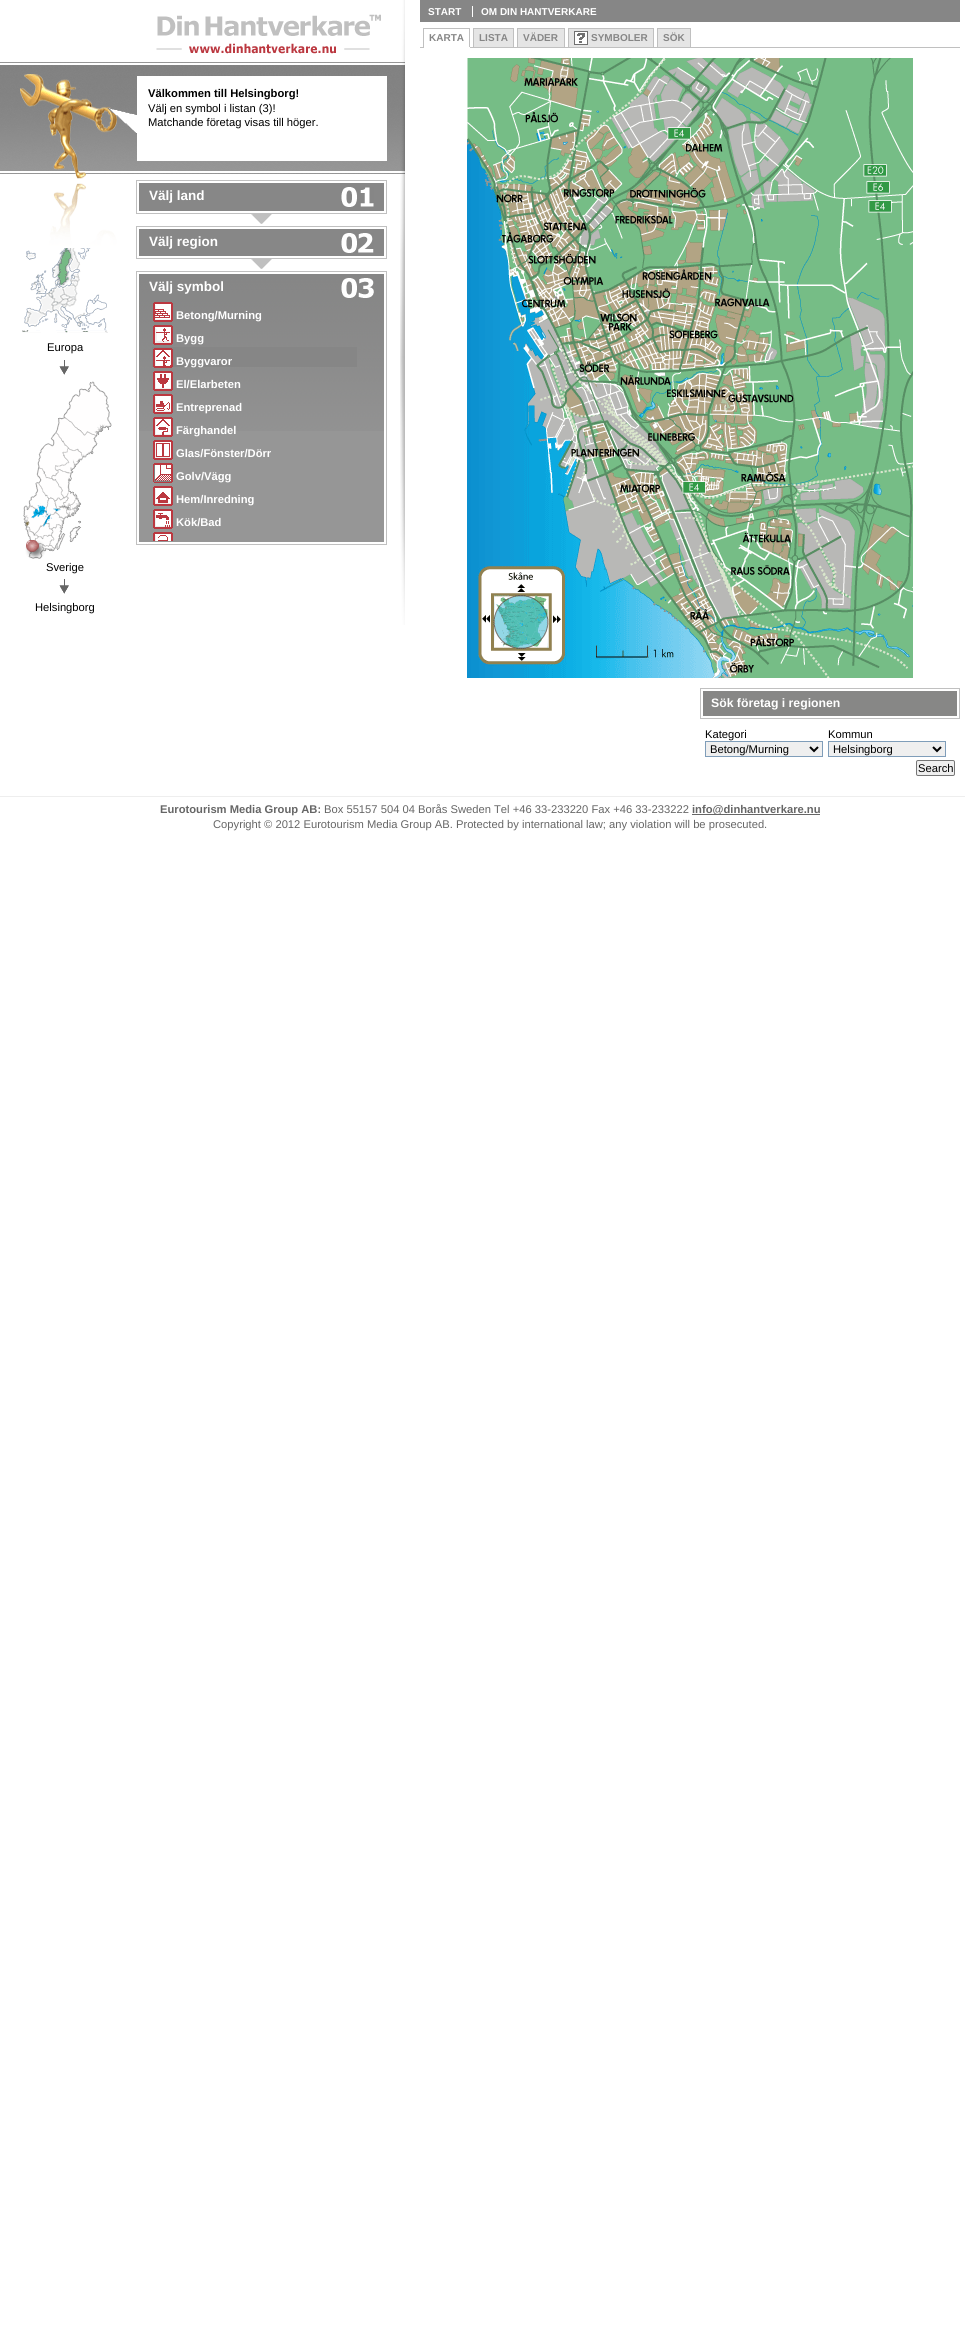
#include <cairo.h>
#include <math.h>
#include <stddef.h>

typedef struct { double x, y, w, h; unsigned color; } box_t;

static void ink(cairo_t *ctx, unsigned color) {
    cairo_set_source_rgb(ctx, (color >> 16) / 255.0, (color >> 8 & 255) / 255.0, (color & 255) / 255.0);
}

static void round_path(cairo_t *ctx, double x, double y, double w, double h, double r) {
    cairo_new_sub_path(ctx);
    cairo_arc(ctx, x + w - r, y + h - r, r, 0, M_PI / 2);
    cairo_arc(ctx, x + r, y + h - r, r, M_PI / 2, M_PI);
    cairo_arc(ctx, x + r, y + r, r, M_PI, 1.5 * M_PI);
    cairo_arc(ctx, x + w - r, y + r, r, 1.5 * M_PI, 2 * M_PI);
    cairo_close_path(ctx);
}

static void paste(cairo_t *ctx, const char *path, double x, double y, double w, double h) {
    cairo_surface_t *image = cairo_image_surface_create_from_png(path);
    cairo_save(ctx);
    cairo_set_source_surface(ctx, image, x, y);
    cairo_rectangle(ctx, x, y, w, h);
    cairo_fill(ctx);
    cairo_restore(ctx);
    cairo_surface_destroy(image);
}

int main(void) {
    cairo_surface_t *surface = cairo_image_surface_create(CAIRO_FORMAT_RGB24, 965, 2337);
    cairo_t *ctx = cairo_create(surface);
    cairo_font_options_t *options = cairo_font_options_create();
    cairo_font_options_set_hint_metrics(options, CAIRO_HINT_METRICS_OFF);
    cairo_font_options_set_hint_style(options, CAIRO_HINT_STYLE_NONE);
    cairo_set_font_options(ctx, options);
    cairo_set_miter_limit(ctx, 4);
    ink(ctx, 0xFFFFFF);
    cairo_paint(ctx);
    paste(ctx, "media/1.png", 0, 62, 400, 112);
    paste(ctx, "media/2.png", 156, 14, 225, 40);
    paste(ctx, "media/3.png", 20, 74, 97, 174);
    paste(ctx, "media/4.png", 108, 76, 279, 85);
    cairo_select_font_face(ctx, "Liberation Sans", CAIRO_FONT_SLANT_NORMAL, CAIRO_FONT_WEIGHT_BOLD);
    cairo_set_font_size(ctx, 11.2);
    ink(ctx, 0x000000);
    cairo_move_to(ctx, 148, 97);
    cairo_show_text(ctx, "Välkommen till Helsingborg!");
    cairo_select_font_face(ctx, "Liberation Sans", CAIRO_FONT_SLANT_NORMAL, CAIRO_FONT_WEIGHT_NORMAL);
    cairo_move_to(ctx, 148, 112);
    cairo_show_text(ctx, "Välj en symbol i listan (3)!");
    cairo_move_to(ctx, 148, 126);
    cairo_show_text(ctx, "Matchande företag visas till höger.");
    paste(ctx, "media/5.png", 22, 248, 86, 85);
    cairo_move_to(ctx, 47, 351);
    cairo_show_text(ctx, "Europa");
    paste(ctx, "media/6.png", 59, 360, 10, 15);
    paste(ctx, "media/7.png", 23, 381, 89, 178);
    cairo_move_to(ctx, 46, 571);
    cairo_show_text(ctx, "Sverige");
    paste(ctx, "media/6.png", 59, 579, 10, 15);
    cairo_move_to(ctx, 35, 611);
    cairo_show_text(ctx, "Helsingborg");
    cairo_rectangle(ctx, 136.5, 180.5, 250, 33);
    ink(ctx, 0xC0C0C0);
    cairo_set_line_width(ctx, 1);
    cairo_stroke(ctx);
    ink(ctx, 0x878787);
    cairo_rectangle(ctx, 139, 183, 245, 28);
    cairo_fill(ctx);
    paste(ctx, "media/8.png", 341, 187, 33, 20);
    cairo_select_font_face(ctx, "Liberation Sans", CAIRO_FONT_SLANT_NORMAL, CAIRO_FONT_WEIGHT_BOLD);
    cairo_set_font_size(ctx, 13.5);
    ink(ctx, 0xFFFFFF);
    cairo_move_to(ctx, 149, 200);
    cairo_show_text(ctx, "Välj land");
    paste(ctx, "media/9.png", 251, 214, 21, 10);
    cairo_rectangle(ctx, 136.5, 226.5, 250, 32);
    ink(ctx, 0xC0C0C0);
    cairo_stroke(ctx);
    ink(ctx, 0x878787);
    cairo_rectangle(ctx, 139, 229, 245, 27);
    cairo_fill(ctx);
    paste(ctx, "media/10.png", 341, 233, 33, 20);
    ink(ctx, 0xFFFFFF);
    cairo_move_to(ctx, 149, 246);
    cairo_show_text(ctx, "Välj region");
    paste(ctx, "media/9.png", 251, 259, 21, 10);
    cairo_rectangle(ctx, 136.5, 271.5, 250, 273);
    ink(ctx, 0xC0C0C0);
    cairo_stroke(ctx);
    ink(ctx, 0x969696);
    cairo_rectangle(ctx, 139, 431, 245, 111);
    cairo_fill(ctx);
    paste(ctx, "media/11.png", 139, 274, 245, 157);
    paste(ctx, "media/12.png", 341, 278, 33, 20);
    ink(ctx, 0xFFFFFF);
    cairo_move_to(ctx, 149, 291);
    cairo_show_text(ctx, "Välj symbol");
    paste(ctx, "media/13.png", 153, 302, 20, 20);
    cairo_set_font_size(ctx, 11.2);
    cairo_move_to(ctx, 176, 319);
    cairo_show_text(ctx, "Betong/Murning");
    paste(ctx, "media/14.png", 153, 325, 20, 20);
    cairo_move_to(ctx, 176, 342);
    cairo_show_text(ctx, "Bygg");
    ink(ctx, 0x868686);
    cairo_rectangle(ctx, 152, 347, 205, 20);
    cairo_fill(ctx);
    paste(ctx, "media/15.png", 153, 348, 20, 20);
    ink(ctx, 0xFFFFFF);
    cairo_move_to(ctx, 176, 365);
    cairo_show_text(ctx, "Byggvaror");
    paste(ctx, "media/16.png", 153, 371, 20, 20);
    cairo_move_to(ctx, 176, 388);
    cairo_show_text(ctx, "El/Elarbeten");
    paste(ctx, "media/17.png", 153, 394, 20, 20);
    cairo_move_to(ctx, 176, 411);
    cairo_show_text(ctx, "Entreprenad");
    paste(ctx, "media/18.png", 153, 417, 20, 20);
    cairo_move_to(ctx, 176, 434);
    cairo_show_text(ctx, "Färghandel");
    paste(ctx, "media/19.png", 153, 440, 20, 20);
    cairo_move_to(ctx, 176, 457);
    cairo_show_text(ctx, "Glas/Fönster/Dörr");
    paste(ctx, "media/20.png", 153, 463, 20, 20);
    cairo_move_to(ctx, 176, 480);
    cairo_show_text(ctx, "Golv/Vägg");
    paste(ctx, "media/21.png", 153, 486, 20, 20);
    cairo_move_to(ctx, 176, 503);
    cairo_show_text(ctx, "Hem/Inredning");
    paste(ctx, "media/22.png", 153, 509, 20, 20);
    cairo_move_to(ctx, 176, 526);
    cairo_show_text(ctx, "Kök/Bad");
    paste(ctx, "media/23.png", 153, 532, 20, 9);
    paste(ctx, "media/24.png", 400, 0, 5, 625);
    ink(ctx, 0x868686);
    cairo_rectangle(ctx, 420, 0, 540, 22);
    cairo_fill(ctx);
    cairo_set_font_size(ctx, 10);
    ink(ctx, 0xFFFFFF);
    cairo_move_to(ctx, 428, 15);
    cairo_show_text(ctx, "START");
    cairo_rectangle(ctx, 472, 6, 1, 11);
    cairo_fill(ctx);
    cairo_move_to(ctx, 481, 15);
    cairo_show_text(ctx, "OM DIN HANTVERKARE");
    {
        static const box_t items[] = {
            {420, 47, 540, 1, 0xC0C0C0},
            {423, 28, 47, 1, 0xC0C0C0},
            {469, 28, 1, 20, 0xC0C0C0},
            {423, 47, 47, 1, 0xFFFFFF},
            {423, 28, 1, 20, 0xC0C0C0},
        };
        for (size_t i = 0; i < sizeof items / sizeof *items; i++) {
            ink(ctx, items[i].color);
            cairo_rectangle(ctx, items[i].x, items[i].y, items[i].w, items[i].h);
            cairo_fill(ctx);
        }
    }
    ink(ctx, 0x868686);
    cairo_move_to(ctx, 429, 41);
    cairo_show_text(ctx, "KARTA");
    ink(ctx, 0xE5E5E5);
    cairo_rectangle(ctx, 473.5, 28.5, 40, 19);
    cairo_fill_preserve(ctx);
    ink(ctx, 0xC0C0C0);
    cairo_stroke(ctx);
    ink(ctx, 0x868686);
    cairo_move_to(ctx, 479, 41);
    cairo_show_text(ctx, "LISTA");
    ink(ctx, 0xE5E5E5);
    cairo_rectangle(ctx, 517.5, 28.5, 47, 19);
    cairo_fill_preserve(ctx);
    ink(ctx, 0xC0C0C0);
    cairo_stroke(ctx);
    ink(ctx, 0x868686);
    cairo_move_to(ctx, 523, 41);
    cairo_show_text(ctx, "VÄDER");
    ink(ctx, 0xE5E5E5);
    cairo_rectangle(ctx, 569, 29, 84, 18);
    cairo_fill(ctx);
    paste(ctx, "media/25.png", 574, 31, 14, 14);
    cairo_rectangle(ctx, 568.5, 28.5, 85, 19);
    ink(ctx, 0xC0C0C0);
    cairo_stroke(ctx);
    ink(ctx, 0x868686);
    cairo_move_to(ctx, 591, 41);
    cairo_show_text(ctx, "SYMBOLER");
    ink(ctx, 0xE5E5E5);
    cairo_rectangle(ctx, 657.5, 28.5, 33, 19);
    cairo_fill_preserve(ctx);
    ink(ctx, 0xC0C0C0);
    cairo_stroke(ctx);
    ink(ctx, 0x868686);
    cairo_move_to(ctx, 663, 41);
    cairo_show_text(ctx, "SÖK");
    paste(ctx, "media/26.png", 467, 58, 446, 620);
    cairo_rectangle(ctx, 700.5, 688.5, 259, 30);
    ink(ctx, 0xC0C0C0);
    cairo_stroke(ctx);
    ink(ctx, 0x878786);
    cairo_rectangle(ctx, 703, 691, 254, 25);
    cairo_fill(ctx);
    cairo_set_font_size(ctx, 12.25);
    ink(ctx, 0xFFFFFF);
    cairo_move_to(ctx, 711, 707);
    cairo_show_text(ctx, "Sök företag i regionen");
    cairo_select_font_face(ctx, "Liberation Sans", CAIRO_FONT_SLANT_NORMAL, CAIRO_FONT_WEIGHT_NORMAL);
    cairo_set_font_size(ctx, 11.2);
    ink(ctx, 0x000000);
    cairo_move_to(ctx, 705, 738);
    cairo_show_text(ctx, "Kategori");
    ink(ctx, 0xEFEFEF);
    cairo_rectangle(ctx, 705.5, 741.5, 117, 15);
    cairo_fill_preserve(ctx);
    ink(ctx, 0x7F9DB9);
    cairo_stroke(ctx);
    cairo_new_path(ctx);
    cairo_move_to(ctx, 810, 747);
    cairo_line_to(ctx, 814, 751);
    cairo_line_to(ctx, 818, 747);
    ink(ctx, 0x000000);
    cairo_set_line_width(ctx, 2);
    cairo_stroke(ctx);
    cairo_move_to(ctx, 710, 753);
    cairo_show_text(ctx, "Betong/Murning");
    cairo_move_to(ctx, 828, 738);
    cairo_show_text(ctx, "Kommun");
    ink(ctx, 0xEFEFEF);
    cairo_rectangle(ctx, 828.5, 741.5, 117, 15);
    cairo_fill_preserve(ctx);
    ink(ctx, 0x7F9DB9);
    cairo_set_line_width(ctx, 1);
    cairo_stroke(ctx);
    cairo_new_path(ctx);
    cairo_move_to(ctx, 933, 747);
    cairo_line_to(ctx, 937, 751);
    cairo_line_to(ctx, 941, 747);
    ink(ctx, 0x000000);
    cairo_set_line_width(ctx, 2);
    cairo_stroke(ctx);
    cairo_move_to(ctx, 833, 753);
    cairo_show_text(ctx, "Helsingborg");
    ink(ctx, 0xEFEFEF);
    round_path(ctx, 916.5, 760.5, 38, 15, 1.5);
    cairo_fill_preserve(ctx);
    ink(ctx, 0x767676);
    cairo_set_line_width(ctx, 1);
    cairo_stroke(ctx);
    ink(ctx, 0x000000);
    cairo_move_to(ctx, 918, 772);
    cairo_show_text(ctx, "Search");
    ink(ctx, 0xEEEEEE);
    cairo_rectangle(ctx, 0, 796, 965, 1);
    cairo_fill(ctx);
    cairo_select_font_face(ctx, "Liberation Sans", CAIRO_FONT_SLANT_NORMAL, CAIRO_FONT_WEIGHT_BOLD);
    ink(ctx, 0x666666);
    cairo_move_to(ctx, 160, 813);
    cairo_show_text(ctx, "Eurotourism Media Group AB:");
    cairo_select_font_face(ctx, "Liberation Sans", CAIRO_FONT_SLANT_NORMAL, CAIRO_FONT_WEIGHT_NORMAL);
    cairo_move_to(ctx, 324, 813);
    cairo_show_text(ctx, "Box 55157 504 04 Borås Sweden Tel +46 33-233220 Fax +46 33-233222");
    cairo_rectangle(ctx, 692, 814, 128, 1);
    cairo_fill(ctx);
    cairo_select_font_face(ctx, "Liberation Sans", CAIRO_FONT_SLANT_NORMAL, CAIRO_FONT_WEIGHT_BOLD);
    cairo_move_to(ctx, 692, 813);
    cairo_show_text(ctx, "info@dinhantverkare.nu");
    cairo_select_font_face(ctx, "Liberation Sans", CAIRO_FONT_SLANT_NORMAL, CAIRO_FONT_WEIGHT_NORMAL);
    cairo_move_to(ctx, 213, 828);
    cairo_show_text(ctx, "Copyright © 2012 Eurotourism Media Group AB. Protected by international law; any violation will be prosecuted.");
    cairo_surface_write_to_png(surface, "image.png");
    cairo_font_options_destroy(options);
    cairo_destroy(ctx);
    cairo_surface_destroy(surface);
    return 0;
}
